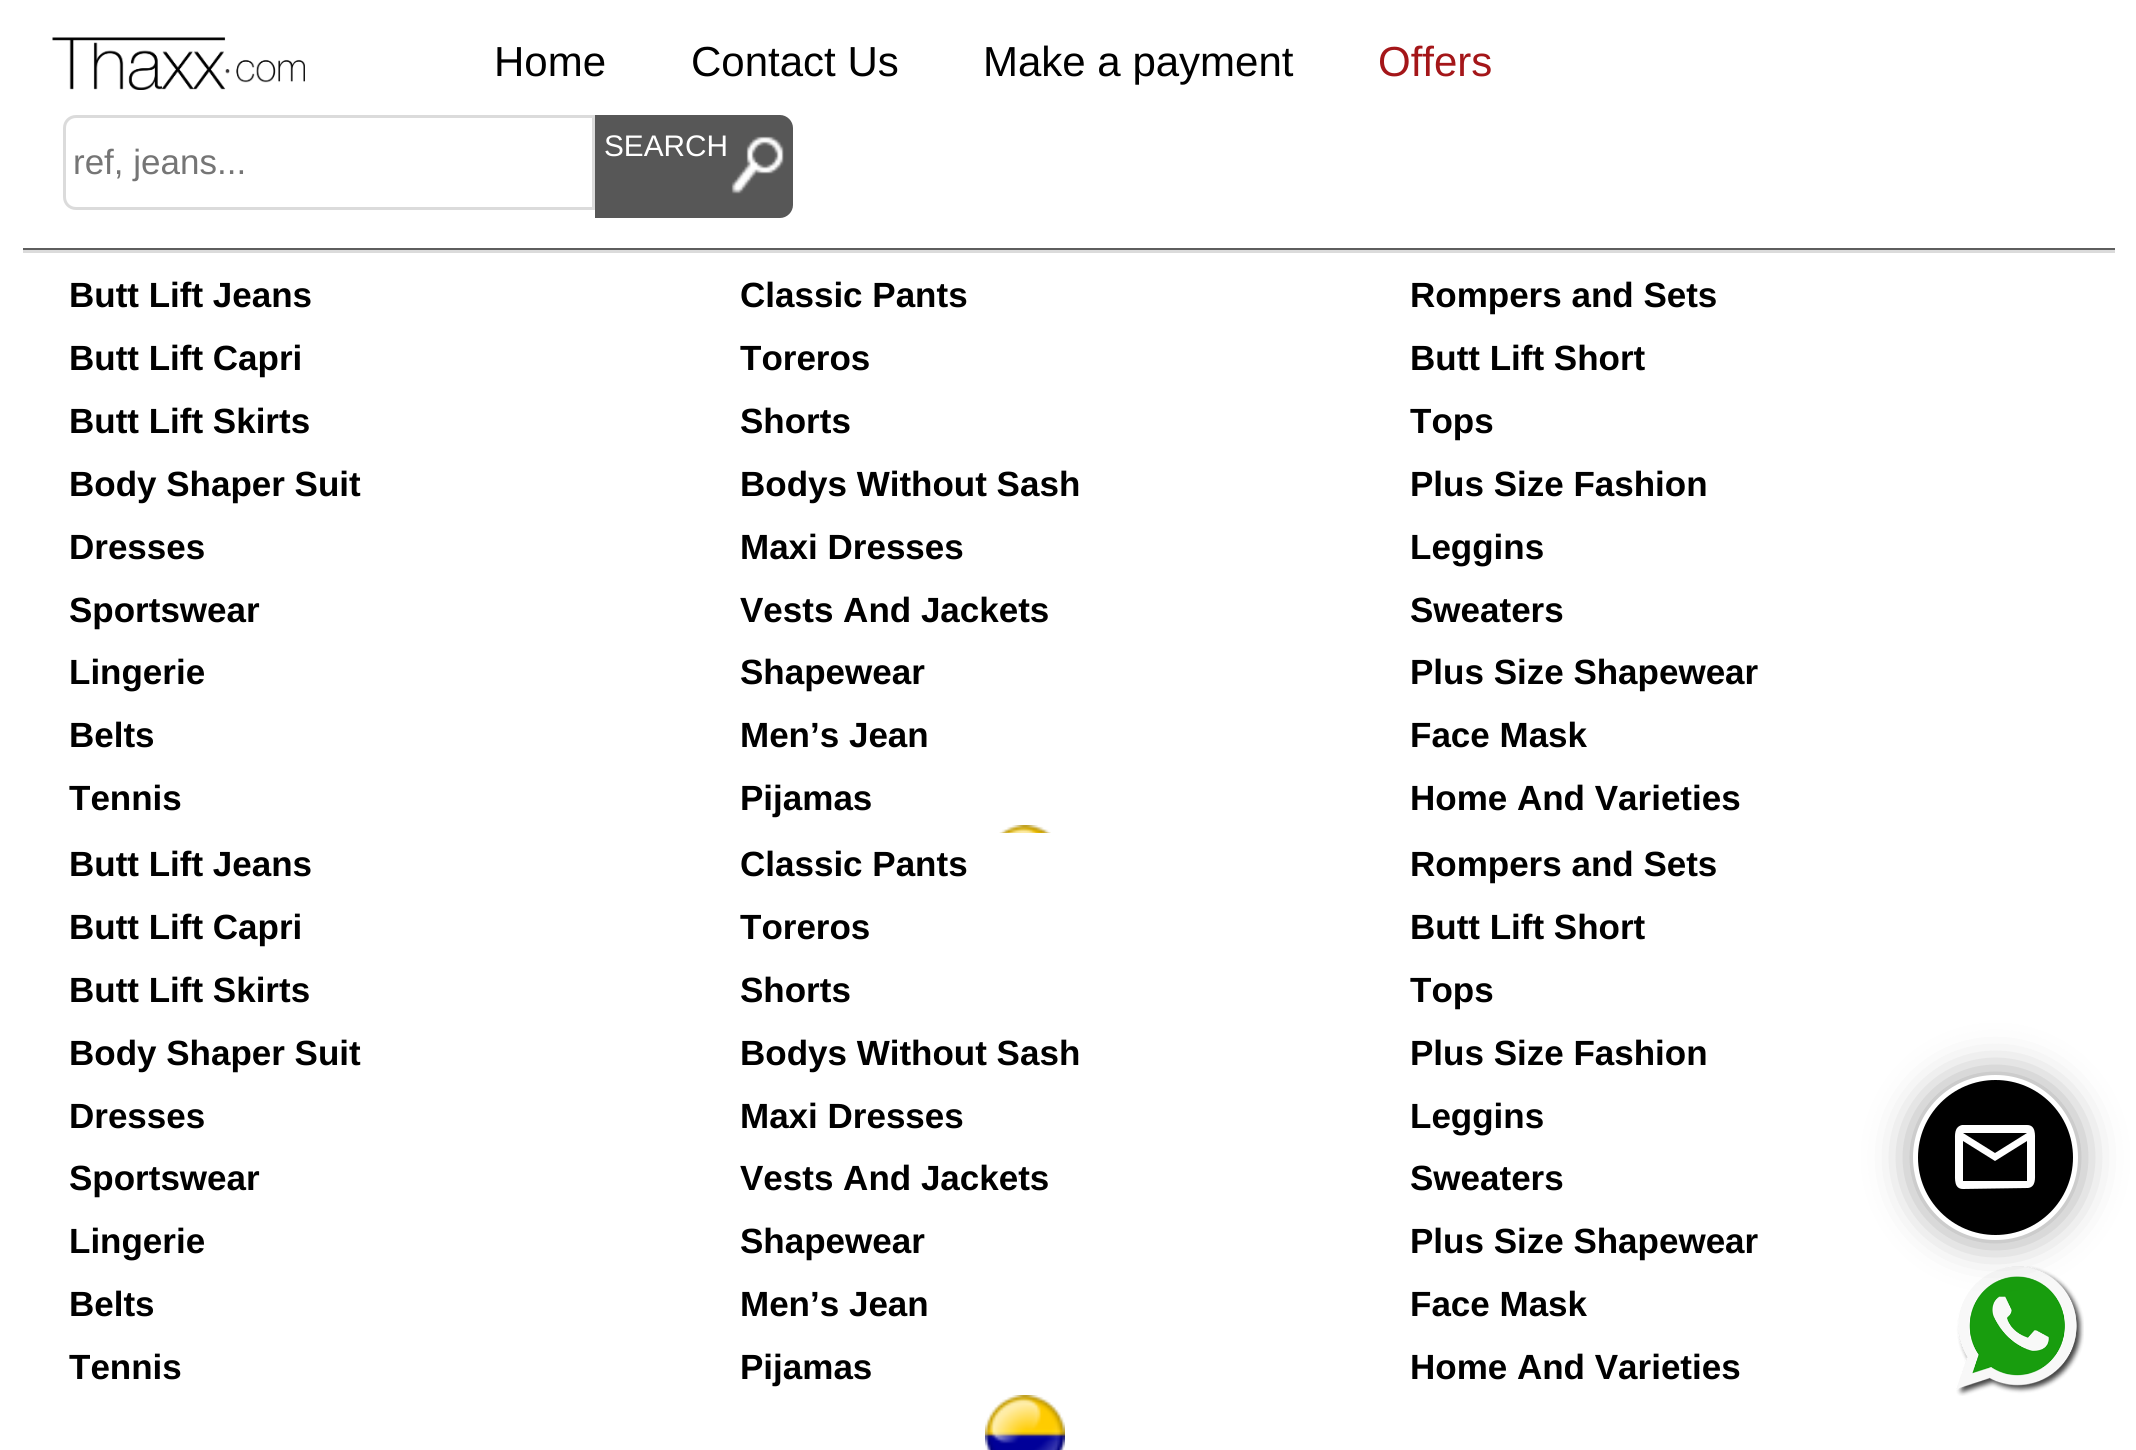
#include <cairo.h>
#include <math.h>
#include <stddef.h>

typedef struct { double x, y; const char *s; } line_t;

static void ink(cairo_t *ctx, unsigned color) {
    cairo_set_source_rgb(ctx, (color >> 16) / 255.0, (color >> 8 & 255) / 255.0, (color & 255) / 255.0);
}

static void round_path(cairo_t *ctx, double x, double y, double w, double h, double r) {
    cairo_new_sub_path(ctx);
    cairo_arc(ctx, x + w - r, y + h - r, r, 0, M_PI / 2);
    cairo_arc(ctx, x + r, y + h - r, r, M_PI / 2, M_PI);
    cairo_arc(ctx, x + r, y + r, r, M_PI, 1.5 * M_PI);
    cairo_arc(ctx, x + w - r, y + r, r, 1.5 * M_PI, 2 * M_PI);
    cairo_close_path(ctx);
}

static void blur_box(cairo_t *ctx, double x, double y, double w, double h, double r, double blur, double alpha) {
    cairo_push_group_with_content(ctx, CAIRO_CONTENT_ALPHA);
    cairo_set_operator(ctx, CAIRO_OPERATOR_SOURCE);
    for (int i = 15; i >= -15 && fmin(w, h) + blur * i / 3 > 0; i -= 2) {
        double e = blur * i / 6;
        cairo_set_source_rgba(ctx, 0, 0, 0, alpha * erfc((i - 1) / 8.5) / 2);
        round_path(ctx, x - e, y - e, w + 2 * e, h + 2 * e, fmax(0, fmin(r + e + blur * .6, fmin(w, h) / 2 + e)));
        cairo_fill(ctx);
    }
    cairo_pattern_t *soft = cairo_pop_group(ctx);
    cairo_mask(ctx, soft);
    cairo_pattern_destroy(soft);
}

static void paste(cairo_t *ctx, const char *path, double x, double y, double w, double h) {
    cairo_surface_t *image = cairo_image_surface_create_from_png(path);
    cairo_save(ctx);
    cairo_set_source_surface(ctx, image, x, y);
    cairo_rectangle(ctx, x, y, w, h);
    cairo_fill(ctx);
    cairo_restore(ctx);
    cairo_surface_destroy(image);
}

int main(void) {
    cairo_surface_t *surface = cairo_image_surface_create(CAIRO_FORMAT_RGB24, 2136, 1450);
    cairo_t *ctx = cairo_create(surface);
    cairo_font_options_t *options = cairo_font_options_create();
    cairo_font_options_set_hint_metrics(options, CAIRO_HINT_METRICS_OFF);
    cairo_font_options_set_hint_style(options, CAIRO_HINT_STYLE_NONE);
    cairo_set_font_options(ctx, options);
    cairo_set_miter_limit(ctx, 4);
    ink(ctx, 0xFFFFFF);
    cairo_paint(ctx);
    ink(ctx, 0x5E5E5E);
    cairo_rectangle(ctx, 23, 248, 2092, 2);
    cairo_fill(ctx);
    paste(ctx, "media/1.png", 52, 37, 253, 53);
    cairo_select_font_face(ctx, "Liberation Sans", CAIRO_FONT_SLANT_NORMAL, CAIRO_FONT_WEIGHT_NORMAL);
    cairo_set_font_size(ctx, 42);
    ink(ctx, 0x000000);
    {
        static const line_t items[] = {
            {494, 76, "Home"},
            {691, 76, "Contact Us"},
            {983, 76, "Make a payment"},
        };
        for (size_t i = 0; i < sizeof items / sizeof *items; i++) {
            cairo_move_to(ctx, items[i].x, items[i].y);
            cairo_show_text(ctx, items[i].s);
        }
    }
    ink(ctx, 0xA41619);
    cairo_move_to(ctx, 1378, 76);
    cairo_show_text(ctx, "Offers");
    cairo_new_path(ctx);
    cairo_move_to(ctx, 76, 116.5);
    cairo_line_to(ctx, 593.5, 116.5);
    cairo_line_to(ctx, 593.5, 208.5);
    cairo_line_to(ctx, 76, 208.5);
    cairo_curve_to(ctx, 69.5, 208.5, 64.5, 203.5, 64.5, 197);
    cairo_line_to(ctx, 64.5, 128);
    cairo_curve_to(ctx, 64.5, 121.5, 69.5, 116.5, 76, 116.5);
    cairo_close_path(ctx);
    ink(ctx, 0xDBDBDB);
    cairo_set_line_width(ctx, 3);
    cairo_stroke(ctx);
    cairo_set_font_size(ctx, 35);
    ink(ctx, 0x757575);
    cairo_move_to(ctx, 73, 174);
    cairo_show_text(ctx, "ref, jeans...");
    ink(ctx, 0x575757);
    cairo_new_path(ctx);
    cairo_move_to(ctx, 595, 115);
    cairo_line_to(ctx, 780, 115);
    cairo_curve_to(ctx, 787, 115, 793, 121, 793, 128);
    cairo_line_to(ctx, 793, 205);
    cairo_curve_to(ctx, 793, 212, 787, 218, 780, 218);
    cairo_line_to(ctx, 595, 218);
    cairo_close_path(ctx);
    cairo_fill(ctx);
    paste(ctx, "media/2.png", 731, 136, 53, 58);
    cairo_set_font_size(ctx, 29.75);
    ink(ctx, 0xFFFFFF);
    cairo_move_to(ctx, 604, 156);
    cairo_show_text(ctx, "SEARCH");
    ink(ctx, 0xDBDBDB);
    cairo_rectangle(ctx, 23, 250, 2092, 3);
    cairo_fill(ctx);
    cairo_select_font_face(ctx, "Liberation Sans", CAIRO_FONT_SLANT_NORMAL, CAIRO_FONT_WEIGHT_BOLD);
    cairo_set_font_size(ctx, 35);
    ink(ctx, 0x000000);
    {
        static const line_t items[] = {
            {69, 307, "Butt Lift Jeans"},
            {740, 307, "Classic Pants"},
            {1410, 307, "Rompers and Sets"},
            {69, 370, "Butt Lift Capri"},
            {740, 370, "Toreros"},
            {1410, 370, "Butt Lift Short"},
            {69, 433, "Butt Lift Skirts"},
            {740, 433, "Shorts"},
            {1410, 433, "Tops"},
            {69, 496, "Body Shaper Suit"},
            {740, 496, "Bodys Without Sash"},
            {1410, 496, "Plus Size Fashion"},
            {69, 559, "Dresses"},
            {740, 559, "Maxi Dresses"},
            {1410, 559, "Leggins"},
            {69, 622, "Sportswear"},
            {740, 622, "Vests And Jackets"},
            {1410, 622, "Sweaters"},
            {69, 684, "Lingerie"},
            {740, 684, "Shapewear"},
            {1410, 684, "Plus Size Shapewear"},
            {69, 747, "Belts"},
            {740, 747, "Men’s Jean"},
            {1410, 747, "Face Mask"},
            {69, 810, "Tennis"},
            {740, 810, "Pijamas"},
            {1410, 810, "Home And Varieties"},
        };
        for (size_t i = 0; i < sizeof items / sizeof *items; i++) {
            cairo_move_to(ctx, items[i].x, items[i].y);
            cairo_show_text(ctx, items[i].s);
        }
    }
    paste(ctx, "media/3.png", 999, 825, 52, 8);
    {
        static const line_t items[] = {
            {69, 876, "Butt Lift Jeans"},
            {740, 876, "Classic Pants"},
            {1410, 876, "Rompers and Sets"},
            {69, 939, "Butt Lift Capri"},
            {740, 939, "Toreros"},
            {1410, 939, "Butt Lift Short"},
            {69, 1002, "Butt Lift Skirts"},
            {740, 1002, "Shorts"},
            {1410, 1002, "Tops"},
            {69, 1065, "Body Shaper Suit"},
            {740, 1065, "Bodys Without Sash"},
            {1410, 1065, "Plus Size Fashion"},
            {69, 1128, "Dresses"},
            {740, 1128, "Maxi Dresses"},
            {1410, 1128, "Leggins"},
            {69, 1190, "Sportswear"},
            {740, 1190, "Vests And Jackets"},
            {1410, 1190, "Sweaters"},
            {69, 1253, "Lingerie"},
            {740, 1253, "Shapewear"},
            {1410, 1253, "Plus Size Shapewear"},
            {69, 1316, "Belts"},
            {740, 1316, "Men’s Jean"},
            {1410, 1316, "Face Mask"},
            {69, 1379, "Tennis"},
            {740, 1379, "Pijamas"},
            {1410, 1379, "Home And Varieties"},
        };
        for (size_t i = 0; i < sizeof items / sizeof *items; i++) {
            cairo_move_to(ctx, items[i].x, items[i].y);
            cairo_show_text(ctx, items[i].s);
        }
    }
    paste(ctx, "media/4.png", 985, 1395, 80, 55);
    paste(ctx, "media/5.png", 1956, 1266, 128, 130);
    ink(ctx, 0x323232);
    blur_box(ctx, 1913, 1075, 165, 165, 82.5, 21, 0.5);
    ink(ctx, 0x000000);
    cairo_arc(ctx, 1995.5, 1157.5, 80, 0, 2 * M_PI);
    cairo_fill_preserve(ctx);
    ink(ctx, 0xFFFFFF);
    cairo_set_line_width(ctx, 5);
    cairo_stroke(ctx);
    cairo_new_path(ctx);
    cairo_move_to(ctx, 2027, 1125);
    cairo_curve_to(ctx, 2036, 1125, 2035, 1135, 2035, 1141);
    cairo_line_to(ctx, 2035, 1173);
    cairo_curve_to(ctx, 2035, 1178, 2036, 1187, 2028, 1188);
    cairo_line_to(ctx, 1963, 1189);
    cairo_curve_to(ctx, 1954, 1189, 1955, 1179, 1955, 1173);
    cairo_line_to(ctx, 1955, 1141);
    cairo_curve_to(ctx, 1955, 1135, 1954, 1127, 1962, 1125);
    cairo_close_path(ctx);
    cairo_move_to(ctx, 2027, 1181);
    cairo_line_to(ctx, 2027, 1141);
    cairo_line_to(ctx, 1995, 1161);
    cairo_line_to(ctx, 1963, 1141);
    cairo_line_to(ctx, 1963, 1181);
    cairo_close_path(ctx);
    cairo_move_to(ctx, 1995, 1153);
    cairo_line_to(ctx, 2027, 1133);
    cairo_line_to(ctx, 1963, 1133);
    cairo_close_path(ctx);
    cairo_fill(ctx);
    cairo_surface_write_to_png(surface, "image.png");
    cairo_font_options_destroy(options);
    cairo_destroy(ctx);
    cairo_surface_destroy(surface);
    return 0;
}
